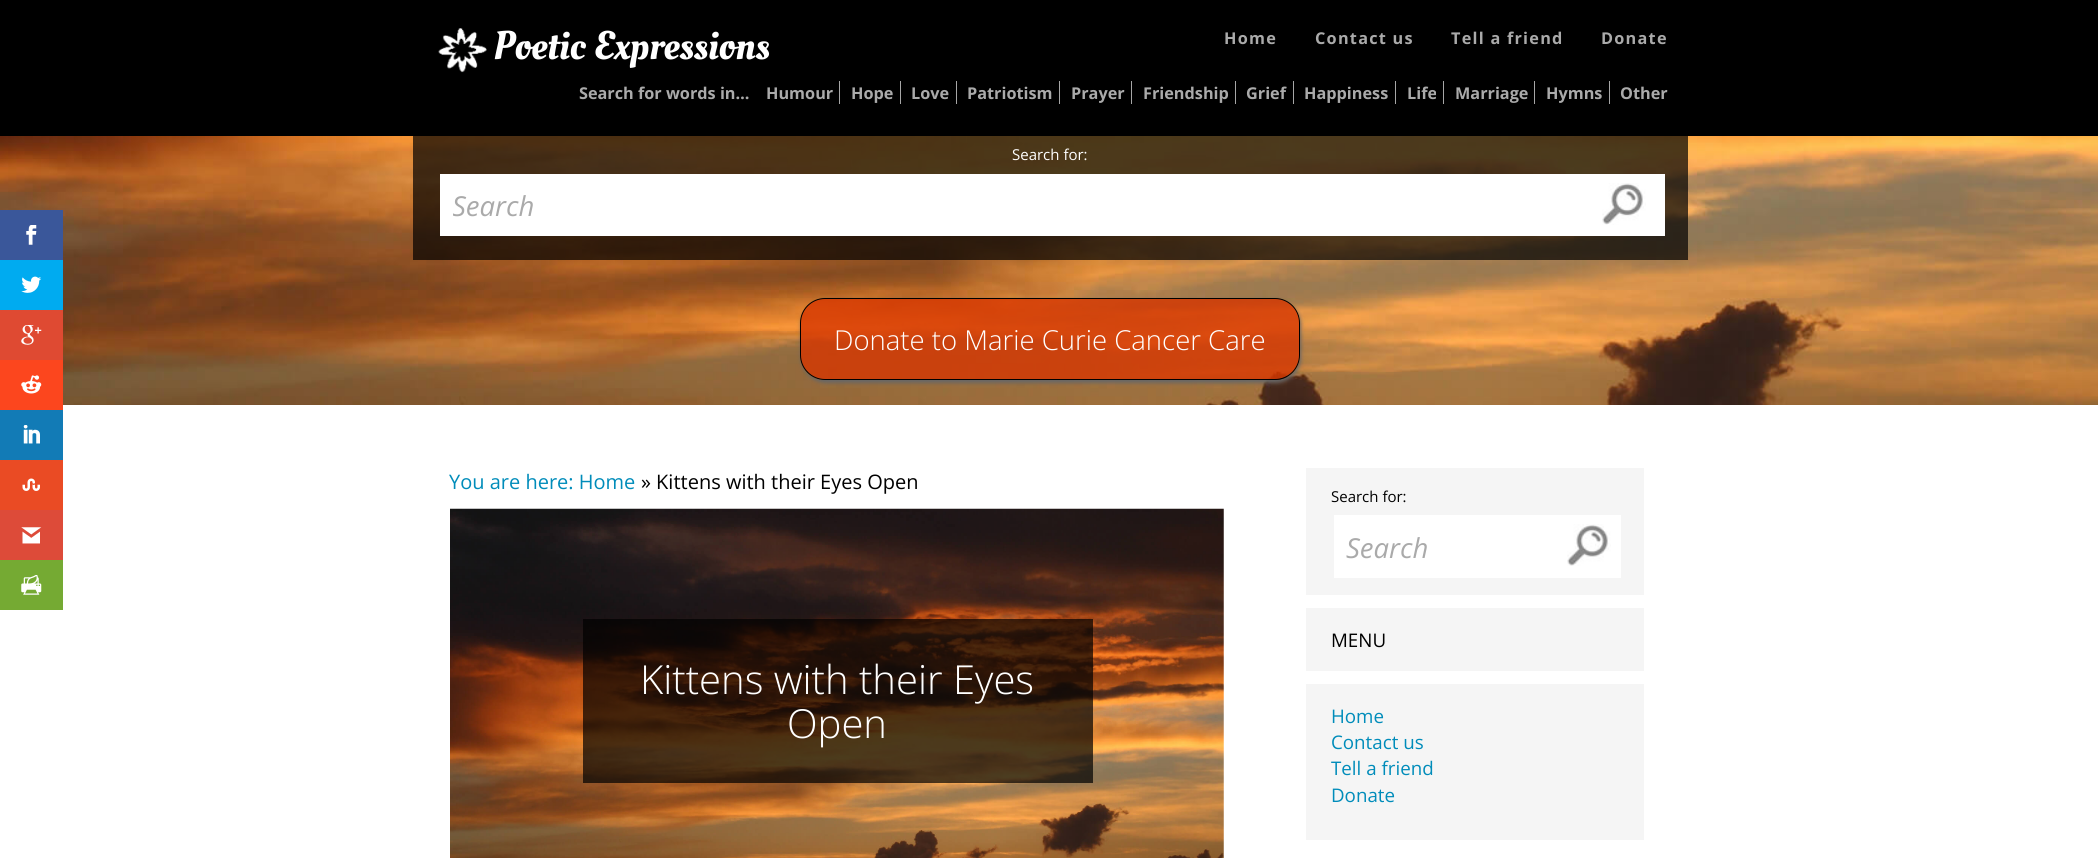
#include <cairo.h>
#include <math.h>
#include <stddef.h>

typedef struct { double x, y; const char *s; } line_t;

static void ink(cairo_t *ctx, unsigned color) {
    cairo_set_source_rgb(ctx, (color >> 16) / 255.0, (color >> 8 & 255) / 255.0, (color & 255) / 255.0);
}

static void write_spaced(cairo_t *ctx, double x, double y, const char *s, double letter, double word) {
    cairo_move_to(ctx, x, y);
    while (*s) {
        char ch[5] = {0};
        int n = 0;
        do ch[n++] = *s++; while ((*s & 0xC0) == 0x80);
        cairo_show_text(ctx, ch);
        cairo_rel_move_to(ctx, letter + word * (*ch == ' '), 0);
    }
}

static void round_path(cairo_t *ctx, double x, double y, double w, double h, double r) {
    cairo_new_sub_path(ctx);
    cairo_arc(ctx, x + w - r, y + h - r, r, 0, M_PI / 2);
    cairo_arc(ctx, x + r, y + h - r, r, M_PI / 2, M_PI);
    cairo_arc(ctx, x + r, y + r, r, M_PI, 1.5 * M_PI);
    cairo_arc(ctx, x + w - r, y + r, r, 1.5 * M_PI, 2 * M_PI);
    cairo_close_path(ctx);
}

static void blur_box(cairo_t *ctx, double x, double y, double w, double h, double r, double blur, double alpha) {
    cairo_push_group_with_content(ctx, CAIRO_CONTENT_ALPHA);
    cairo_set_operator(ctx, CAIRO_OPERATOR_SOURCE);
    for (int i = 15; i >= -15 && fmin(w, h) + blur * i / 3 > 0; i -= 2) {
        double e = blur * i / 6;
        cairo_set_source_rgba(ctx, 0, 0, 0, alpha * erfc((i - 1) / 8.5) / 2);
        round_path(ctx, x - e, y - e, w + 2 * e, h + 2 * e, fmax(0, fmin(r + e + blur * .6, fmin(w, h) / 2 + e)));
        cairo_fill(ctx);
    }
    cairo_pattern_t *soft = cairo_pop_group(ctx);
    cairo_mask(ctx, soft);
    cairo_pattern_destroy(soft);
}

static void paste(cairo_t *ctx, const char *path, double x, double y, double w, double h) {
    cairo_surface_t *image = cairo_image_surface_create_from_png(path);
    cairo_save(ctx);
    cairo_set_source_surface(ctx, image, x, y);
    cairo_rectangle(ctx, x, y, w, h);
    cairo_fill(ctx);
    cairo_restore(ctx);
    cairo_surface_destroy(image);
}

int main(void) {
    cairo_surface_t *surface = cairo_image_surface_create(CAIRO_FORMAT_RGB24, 2098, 858);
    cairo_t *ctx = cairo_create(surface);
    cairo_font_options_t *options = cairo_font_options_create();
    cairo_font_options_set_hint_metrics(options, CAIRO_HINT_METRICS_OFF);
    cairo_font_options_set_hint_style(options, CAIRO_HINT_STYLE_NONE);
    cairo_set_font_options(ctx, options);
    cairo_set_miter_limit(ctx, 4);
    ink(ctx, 0xFFFFFF);
    cairo_paint(ctx);
    ink(ctx, 0x000000);
    cairo_rectangle(ctx, 0, 0, 2098, 136);
    cairo_fill(ctx);
    paste(ctx, "media/1.png", 438, 28, 49, 45);
    cairo_select_font_face(ctx, "Oleo Script", CAIRO_FONT_SLANT_NORMAL, CAIRO_FONT_WEIGHT_NORMAL);
    cairo_set_font_size(ctx, 40);
    ink(ctx, 0xFFFFFF);
    cairo_move_to(ctx, 493, 59);
    cairo_show_text(ctx, "Poetic Expressions");
    cairo_select_font_face(ctx, "Open Sans", CAIRO_FONT_SLANT_NORMAL, CAIRO_FONT_WEIGHT_BOLD);
    cairo_set_font_size(ctx, 16.25);
    ink(ctx, 0xAAAAAA);
    {
        static const line_t items[] = {
            {1224, 44, "Home"},
            {1315, 44, "Contact us"},
            {1451, 44, "Tell a friend"},
            {1601, 44, "Donate"},
        };
        for (size_t i = 0; i < sizeof items / sizeof *items; i++) {
            write_spaced(ctx, items[i].x, items[i].y, items[i].s, 1.25, 0);
        }
    }
    cairo_move_to(ctx, 579, 99);
    cairo_show_text(ctx, "Search for words in…");
    cairo_move_to(ctx, 766, 99);
    cairo_show_text(ctx, "Humour");
    ink(ctx, 0xA6A6A6);
    cairo_rectangle(ctx, 839, 81, 1, 23);
    cairo_fill(ctx);
    ink(ctx, 0xAAAAAA);
    cairo_move_to(ctx, 851, 99);
    cairo_show_text(ctx, "Hope");
    ink(ctx, 0xA6A6A6);
    cairo_rectangle(ctx, 900, 81, 1, 23);
    cairo_fill(ctx);
    ink(ctx, 0xAAAAAA);
    cairo_move_to(ctx, 911, 99);
    cairo_show_text(ctx, "Love");
    ink(ctx, 0xA6A6A6);
    cairo_rectangle(ctx, 956, 81, 1, 23);
    cairo_fill(ctx);
    ink(ctx, 0xAAAAAA);
    cairo_move_to(ctx, 967, 99);
    cairo_show_text(ctx, "Patriotism");
    ink(ctx, 0xA6A6A6);
    cairo_rectangle(ctx, 1059, 81, 1, 23);
    cairo_fill(ctx);
    ink(ctx, 0xAAAAAA);
    cairo_move_to(ctx, 1071, 99);
    cairo_show_text(ctx, "Prayer");
    ink(ctx, 0xA6A6A6);
    cairo_rectangle(ctx, 1131, 81, 1, 23);
    cairo_fill(ctx);
    ink(ctx, 0xAAAAAA);
    cairo_move_to(ctx, 1143, 99);
    cairo_show_text(ctx, "Friendship");
    ink(ctx, 0xA6A6A6);
    cairo_rectangle(ctx, 1235, 81, 1, 23);
    cairo_fill(ctx);
    ink(ctx, 0xAAAAAA);
    cairo_move_to(ctx, 1246, 99);
    cairo_show_text(ctx, "Grief");
    ink(ctx, 0xA6A6A6);
    cairo_rectangle(ctx, 1293, 81, 1, 23);
    cairo_fill(ctx);
    ink(ctx, 0xAAAAAA);
    cairo_move_to(ctx, 1304, 99);
    cairo_show_text(ctx, "Happiness");
    ink(ctx, 0xA6A6A6);
    cairo_rectangle(ctx, 1395, 81, 1, 23);
    cairo_fill(ctx);
    ink(ctx, 0xAAAAAA);
    cairo_move_to(ctx, 1407, 99);
    cairo_show_text(ctx, "Life");
    ink(ctx, 0xA6A6A6);
    cairo_rectangle(ctx, 1443, 81, 1, 23);
    cairo_fill(ctx);
    ink(ctx, 0xAAAAAA);
    cairo_move_to(ctx, 1455, 99);
    cairo_show_text(ctx, "Marriage");
    ink(ctx, 0xA6A6A6);
    cairo_rectangle(ctx, 1534, 81, 1, 23);
    cairo_fill(ctx);
    ink(ctx, 0xAAAAAA);
    cairo_move_to(ctx, 1546, 99);
    cairo_show_text(ctx, "Hymns");
    ink(ctx, 0xA6A6A6);
    cairo_rectangle(ctx, 1609, 81, 1, 23);
    cairo_fill(ctx);
    ink(ctx, 0xAAAAAA);
    cairo_move_to(ctx, 1620, 99);
    cairo_show_text(ctx, "Other");
    paste(ctx, "media/2.png", 0, 136, 2098, 269);
    cairo_set_source_rgba(ctx, 0, 0, 0, 0.7);
    cairo_rectangle(ctx, 413, 136, 1275, 124);
    cairo_fill(ctx);
    cairo_select_font_face(ctx, "Open Sans", CAIRO_FONT_SLANT_NORMAL, CAIRO_FONT_WEIGHT_NORMAL);
    cairo_set_font_size(ctx, 15);
    ink(ctx, 0xFFFFFF);
    cairo_move_to(ctx, 1012, 160);
    cairo_show_text(ctx, "Search for:");
    cairo_rectangle(ctx, 440, 174, 1225, 62);
    cairo_fill(ctx);
    cairo_save(ctx);
    cairo_rectangle(ctx, 453, 186, 1212, 38);
    cairo_clip(ctx);
    cairo_select_font_face(ctx, "Open Sans", CAIRO_FONT_SLANT_ITALIC, CAIRO_FONT_WEIGHT_NORMAL);
    cairo_set_font_size(ctx, 27.5);
    ink(ctx, 0xAAAAAA);
    cairo_move_to(ctx, 452, 216);
    cairo_show_text(ctx, "Search");
    cairo_restore(ctx);
    paste(ctx, "media/3.png", 1602, 183, 44, 42);
    cairo_save(ctx);
    cairo_set_fill_rule(ctx, CAIRO_FILL_RULE_EVEN_ODD);
    cairo_new_path(ctx);
    cairo_move_to(ctx, 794, 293);
    cairo_line_to(ctx, 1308, 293);
    cairo_line_to(ctx, 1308, 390);
    cairo_line_to(ctx, 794, 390);
    cairo_close_path(ctx);
    cairo_move_to(ctx, 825, 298);
    cairo_line_to(ctx, 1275, 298);
    cairo_curve_to(ctx, 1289, 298, 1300, 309, 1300, 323);
    cairo_line_to(ctx, 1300, 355);
    cairo_curve_to(ctx, 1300, 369, 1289, 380, 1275, 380);
    cairo_line_to(ctx, 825, 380);
    cairo_curve_to(ctx, 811, 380, 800, 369, 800, 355);
    cairo_line_to(ctx, 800, 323);
    cairo_curve_to(ctx, 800, 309, 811, 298, 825, 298);
    cairo_close_path(ctx);
    cairo_clip(ctx);
    ink(ctx, 0x666666);
    blur_box(ctx, 801, 300, 500, 83, 25, 2, 1);
    cairo_restore(ctx);
    cairo_set_source_rgba(ctx, 0.839, 0.212, 0, 0.8);
    round_path(ctx, 800.5, 298.5, 499, 81, 24.5);
    cairo_fill_preserve(ctx);
    ink(ctx, 0x000000);
    cairo_set_line_width(ctx, 1);
    cairo_stroke(ctx);
    cairo_select_font_face(ctx, "Open Sans Light", CAIRO_FONT_SLANT_NORMAL, CAIRO_FONT_WEIGHT_NORMAL);
    cairo_set_font_size(ctx, 27.5);
    ink(ctx, 0xFFFFFF);
    cairo_move_to(ctx, 834, 350);
    cairo_show_text(ctx, "Donate to Marie Curie Cancer Care");
    ink(ctx, 0x3A579A);
    cairo_rectangle(ctx, 0, 210, 63, 50);
    cairo_fill(ctx);
    paste(ctx, "media/4.png", 26, 225, 11, 20);
    ink(ctx, 0x00ABF0);
    cairo_rectangle(ctx, 0, 260, 63, 50);
    cairo_fill(ctx);
    paste(ctx, "media/5.png", 21, 276, 21, 17);
    ink(ctx, 0xDF4A32);
    cairo_rectangle(ctx, 0, 310, 63, 50);
    cairo_fill(ctx);
    paste(ctx, "media/6.png", 21, 325, 21, 20);
    ink(ctx, 0xFC461E);
    cairo_rectangle(ctx, 0, 360, 63, 50);
    cairo_fill(ctx);
    paste(ctx, "media/7.png", 21, 375, 21, 19);
    ink(ctx, 0x127BB6);
    cairo_rectangle(ctx, 0, 410, 63, 50);
    cairo_fill(ctx);
    paste(ctx, "media/8.png", 23, 425, 17, 19);
    ink(ctx, 0xEA4B24);
    cairo_rectangle(ctx, 0, 460, 63, 50);
    cairo_fill(ctx);
    paste(ctx, "media/9.png", 22, 478, 18, 13);
    ink(ctx, 0xDD4B39);
    cairo_rectangle(ctx, 0, 510, 63, 50);
    cairo_fill(ctx);
    paste(ctx, "media/10.png", 21, 527, 21, 17);
    ink(ctx, 0x75AA33);
    cairo_rectangle(ctx, 0, 560, 63, 50);
    cairo_fill(ctx);
    paste(ctx, "media/11.png", 21, 575, 21, 20);
    cairo_select_font_face(ctx, "Open Sans", CAIRO_FONT_SLANT_NORMAL, CAIRO_FONT_WEIGHT_NORMAL);
    cairo_set_font_size(ctx, 20);
    ink(ctx, 0x008CBA);
    cairo_move_to(ctx, 449, 489);
    cairo_show_text(ctx, "You are here: Home");
    ink(ctx, 0x000000);
    cairo_move_to(ctx, 641, 489);
    cairo_show_text(ctx, "» Kittens with their Eyes Open");
    paste(ctx, "media/12.png", 450, 508, 774, 350);
    cairo_set_source_rgba(ctx, 0, 0, 0, 0.7);
    cairo_rectangle(ctx, 583, 619, 510, 164);
    cairo_fill(ctx);
    cairo_select_font_face(ctx, "Open Sans Light", CAIRO_FONT_SLANT_NORMAL, CAIRO_FONT_WEIGHT_NORMAL);
    cairo_set_font_size(ctx, 40);
    ink(ctx, 0xFFFFFF);
    cairo_move_to(ctx, 640, 694);
    cairo_show_text(ctx, "Kittens with their Eyes");
    cairo_move_to(ctx, 787, 738);
    cairo_show_text(ctx, "Open");
    ink(ctx, 0xF5F5F5);
    cairo_rectangle(ctx, 1306, 468, 338, 127);
    cairo_fill(ctx);
    cairo_select_font_face(ctx, "Open Sans", CAIRO_FONT_SLANT_NORMAL, CAIRO_FONT_WEIGHT_NORMAL);
    cairo_set_font_size(ctx, 15);
    ink(ctx, 0x000000);
    cairo_move_to(ctx, 1331, 502);
    cairo_show_text(ctx, "Search for:");
    ink(ctx, 0xFFFFFF);
    cairo_rectangle(ctx, 1334, 515, 287, 63);
    cairo_fill(ctx);
    cairo_select_font_face(ctx, "Open Sans", CAIRO_FONT_SLANT_ITALIC, CAIRO_FONT_WEIGHT_NORMAL);
    cairo_set_font_size(ctx, 27.5);
    ink(ctx, 0xAAAAAA);
    cairo_move_to(ctx, 1346, 558);
    cairo_show_text(ctx, "Search");
    paste(ctx, "media/13.png", 1567, 524, 44, 42);
    ink(ctx, 0xF5F5F5);
    cairo_rectangle(ctx, 1306, 608, 338, 63);
    cairo_fill(ctx);
    cairo_select_font_face(ctx, "Open Sans", CAIRO_FONT_SLANT_NORMAL, CAIRO_FONT_WEIGHT_NORMAL);
    cairo_set_font_size(ctx, 18.75);
    ink(ctx, 0x000000);
    cairo_move_to(ctx, 1331, 647);
    cairo_show_text(ctx, "MENU");
    ink(ctx, 0xF5F5F5);
    cairo_rectangle(ctx, 1306, 684, 338, 156);
    cairo_fill(ctx);
    ink(ctx, 0x008CBA);
    {
        static const line_t items[] = {
            {1331, 723, "Home"},
            {1331, 749, "Contact us"},
            {1331, 775, "Tell a friend"},
            {1331, 802, "Donate"},
        };
        for (size_t i = 0; i < sizeof items / sizeof *items; i++) {
            cairo_move_to(ctx, items[i].x, items[i].y);
            cairo_show_text(ctx, items[i].s);
        }
    }
    cairo_surface_write_to_png(surface, "image.png");
    cairo_font_options_destroy(options);
    cairo_destroy(ctx);
    cairo_surface_destroy(surface);
    return 0;
}
